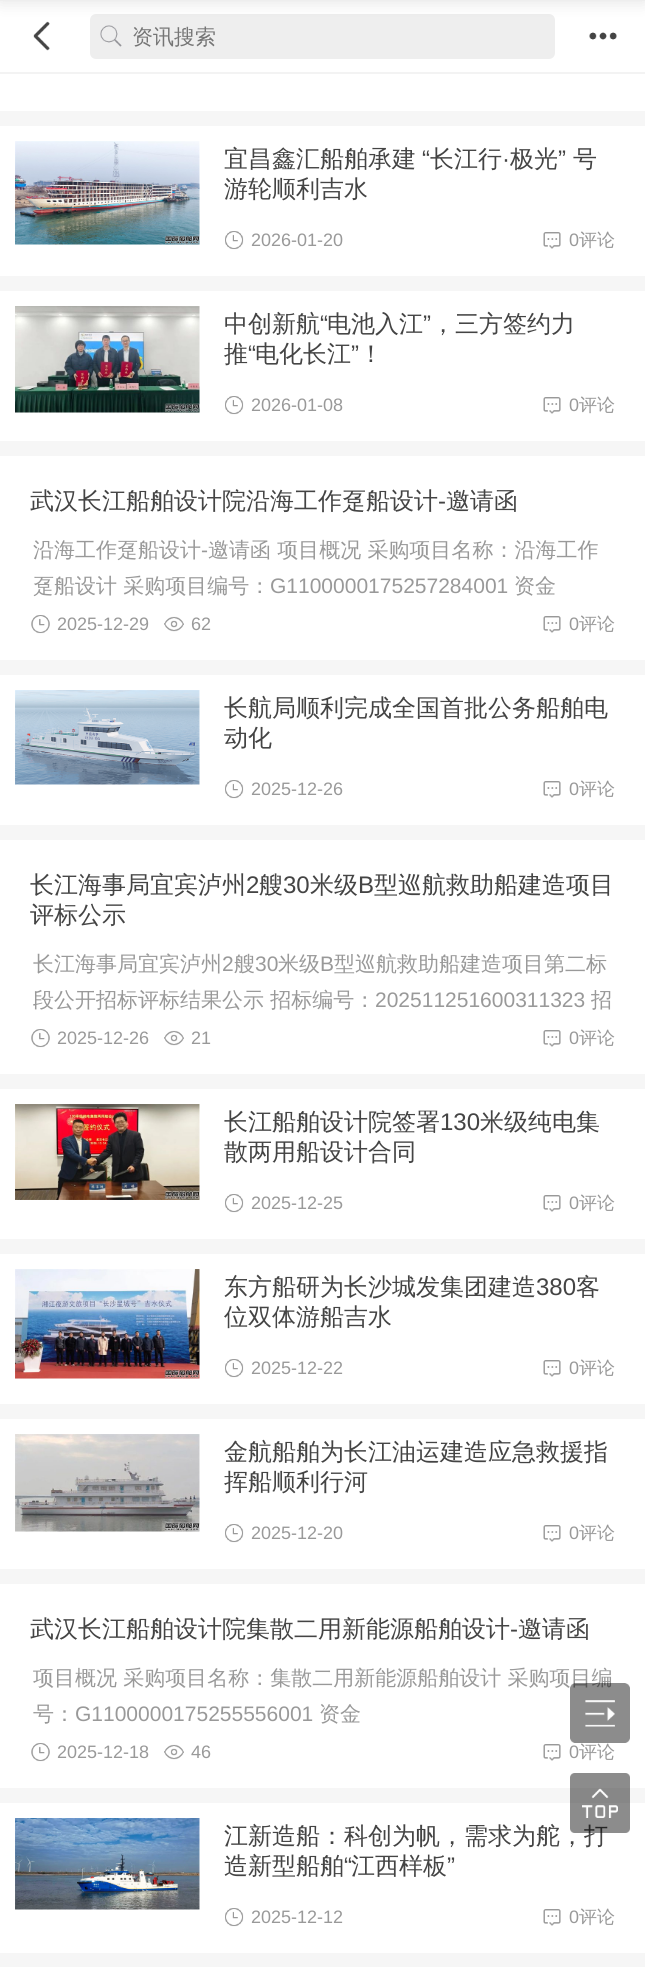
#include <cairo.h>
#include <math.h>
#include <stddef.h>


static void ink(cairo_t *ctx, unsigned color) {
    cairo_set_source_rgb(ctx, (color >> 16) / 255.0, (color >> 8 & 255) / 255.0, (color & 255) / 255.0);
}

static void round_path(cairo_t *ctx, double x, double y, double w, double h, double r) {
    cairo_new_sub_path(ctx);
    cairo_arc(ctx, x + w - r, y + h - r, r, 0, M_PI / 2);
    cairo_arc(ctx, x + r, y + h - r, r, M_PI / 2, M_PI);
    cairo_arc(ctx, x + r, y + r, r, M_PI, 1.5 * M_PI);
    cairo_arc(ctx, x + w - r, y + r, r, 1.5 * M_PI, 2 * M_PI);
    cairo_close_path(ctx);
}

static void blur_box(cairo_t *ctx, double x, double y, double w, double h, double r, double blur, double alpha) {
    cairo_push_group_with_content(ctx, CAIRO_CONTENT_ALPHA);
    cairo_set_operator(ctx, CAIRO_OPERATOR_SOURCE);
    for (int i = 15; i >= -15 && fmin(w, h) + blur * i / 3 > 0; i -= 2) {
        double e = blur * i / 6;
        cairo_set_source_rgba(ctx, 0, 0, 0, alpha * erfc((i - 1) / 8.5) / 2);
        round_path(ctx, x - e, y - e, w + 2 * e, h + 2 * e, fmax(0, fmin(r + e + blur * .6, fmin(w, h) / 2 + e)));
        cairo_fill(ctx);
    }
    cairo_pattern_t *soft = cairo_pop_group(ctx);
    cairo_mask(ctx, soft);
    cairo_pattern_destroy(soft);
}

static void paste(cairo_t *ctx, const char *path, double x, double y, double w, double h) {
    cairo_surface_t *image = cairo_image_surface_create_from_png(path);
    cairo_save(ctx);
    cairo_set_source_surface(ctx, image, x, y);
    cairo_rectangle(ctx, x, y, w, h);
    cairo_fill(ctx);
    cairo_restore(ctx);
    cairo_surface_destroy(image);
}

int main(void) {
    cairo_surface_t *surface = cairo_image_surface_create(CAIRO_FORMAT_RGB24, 645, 1967);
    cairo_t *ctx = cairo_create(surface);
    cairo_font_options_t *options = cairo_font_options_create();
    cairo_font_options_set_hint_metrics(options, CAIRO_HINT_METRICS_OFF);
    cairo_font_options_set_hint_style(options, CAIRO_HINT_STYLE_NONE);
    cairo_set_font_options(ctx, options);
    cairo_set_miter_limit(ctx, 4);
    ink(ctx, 0xFFFFFF);
    cairo_paint(ctx);
    paste(ctx, "media/1.png", 33, 21, 17, 30);
    ink(ctx, 0xEEEEEE);
    round_path(ctx, 90, 14, 465, 45, 6);
    cairo_fill(ctx);
    paste(ctx, "media/2.png", 100, 25, 22, 22);
    ink(ctx, 0x000000);
    blur_box(ctx, 0, -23, 645, 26, 0, 7.5, 0.1);
    ink(ctx, 0xEEEEEE);
    cairo_rectangle(ctx, 0, 0, 645, 1);
    cairo_fill(ctx);
    ink(ctx, 0xF3F3F3);
    cairo_rectangle(ctx, 0, 72, 645, 2);
    cairo_fill(ctx);
    cairo_select_font_face(ctx, "WenQuanYi Zen Hei Medium", CAIRO_FONT_SLANT_NORMAL, CAIRO_FONT_WEIGHT_NORMAL);
    cairo_set_font_size(ctx, 21);
    ink(ctx, 0x757575);
    cairo_move_to(ctx, 132, 44);
    cairo_show_text(ctx, "资讯搜索");
    paste(ctx, "media/3.png", 589, 32, 28, 8);
    ink(ctx, 0xF6F6F6);
    cairo_rectangle(ctx, 0, 111, 645, 1856);
    cairo_fill(ctx);
    ink(ctx, 0xFFFFFF);
    cairo_rectangle(ctx, 0, 126, 645, 150);
    cairo_fill(ctx);
    paste(ctx, "media/4.png", 15, 141, 185, 104);
    cairo_set_font_size(ctx, 24);
    ink(ctx, 0x444444);
    cairo_move_to(ctx, 224, 167);
    cairo_show_text(ctx, "宜昌鑫汇船舶承建");
    cairo_select_font_face(ctx, "Liberation Sans", CAIRO_FONT_SLANT_NORMAL, CAIRO_FONT_WEIGHT_NORMAL);
    cairo_move_to(ctx, 422, 167);
    cairo_show_text(ctx, "“");
    cairo_select_font_face(ctx, "WenQuanYi Zen Hei Medium", CAIRO_FONT_SLANT_NORMAL, CAIRO_FONT_WEIGHT_NORMAL);
    cairo_move_to(ctx, 430, 167);
    cairo_show_text(ctx, "长江行");
    cairo_move_to(ctx, 510, 167);
    cairo_show_text(ctx, "极光");
    cairo_select_font_face(ctx, "Liberation Sans", CAIRO_FONT_SLANT_NORMAL, CAIRO_FONT_WEIGHT_NORMAL);
    cairo_move_to(ctx, 558, 167);
    cairo_show_text(ctx, "”");
    cairo_select_font_face(ctx, "WenQuanYi Zen Hei Medium", CAIRO_FONT_SLANT_NORMAL, CAIRO_FONT_WEIGHT_NORMAL);
    cairo_move_to(ctx, 573, 167);
    cairo_show_text(ctx, "号");
    cairo_select_font_face(ctx, "Liberation Sans", CAIRO_FONT_SLANT_NORMAL, CAIRO_FONT_WEIGHT_NORMAL);
    cairo_move_to(ctx, 502, 167);
    cairo_show_text(ctx, "·");
    cairo_select_font_face(ctx, "WenQuanYi Zen Hei Medium", CAIRO_FONT_SLANT_NORMAL, CAIRO_FONT_WEIGHT_NORMAL);
    cairo_move_to(ctx, 224, 197);
    cairo_show_text(ctx, "游轮顺利吉水");
    paste(ctx, "media/5.png", 225, 231, 19, 19);
    cairo_select_font_face(ctx, "Liberation Sans", CAIRO_FONT_SLANT_NORMAL, CAIRO_FONT_WEIGHT_NORMAL);
    cairo_set_font_size(ctx, 18);
    ink(ctx, 0x999999);
    cairo_move_to(ctx, 251, 246);
    cairo_show_text(ctx, "2026-01-20");
    paste(ctx, "media/6.png", 543, 232, 18, 17);
    cairo_move_to(ctx, 569, 246);
    cairo_show_text(ctx, "0");
    cairo_select_font_face(ctx, "WenQuanYi Zen Hei Medium", CAIRO_FONT_SLANT_NORMAL, CAIRO_FONT_WEIGHT_NORMAL);
    cairo_move_to(ctx, 579, 246);
    cairo_show_text(ctx, "评论");
    ink(ctx, 0xFFFFFF);
    cairo_rectangle(ctx, 0, 291, 645, 150);
    cairo_fill(ctx);
    paste(ctx, "media/7.png", 15, 306, 185, 107);
    cairo_set_font_size(ctx, 24);
    ink(ctx, 0x444444);
    cairo_move_to(ctx, 224, 332);
    cairo_show_text(ctx, "中创新航");
    cairo_select_font_face(ctx, "Liberation Sans", CAIRO_FONT_SLANT_NORMAL, CAIRO_FONT_WEIGHT_NORMAL);
    cairo_move_to(ctx, 320, 332);
    cairo_show_text(ctx, "“");
    cairo_select_font_face(ctx, "WenQuanYi Zen Hei Medium", CAIRO_FONT_SLANT_NORMAL, CAIRO_FONT_WEIGHT_NORMAL);
    cairo_move_to(ctx, 327, 332);
    cairo_show_text(ctx, "电池入江");
    cairo_select_font_face(ctx, "Liberation Sans", CAIRO_FONT_SLANT_NORMAL, CAIRO_FONT_WEIGHT_NORMAL);
    cairo_move_to(ctx, 423, 332);
    cairo_show_text(ctx, "”");
    cairo_select_font_face(ctx, "WenQuanYi Zen Hei Medium", CAIRO_FONT_SLANT_NORMAL, CAIRO_FONT_WEIGHT_NORMAL);
    cairo_move_to(ctx, 431, 332);
    cairo_show_text(ctx, "，三方签约力");
    cairo_move_to(ctx, 224, 362);
    cairo_show_text(ctx, "推");
    cairo_select_font_face(ctx, "Liberation Sans", CAIRO_FONT_SLANT_NORMAL, CAIRO_FONT_WEIGHT_NORMAL);
    cairo_move_to(ctx, 248, 362);
    cairo_show_text(ctx, "“");
    cairo_select_font_face(ctx, "WenQuanYi Zen Hei Medium", CAIRO_FONT_SLANT_NORMAL, CAIRO_FONT_WEIGHT_NORMAL);
    cairo_move_to(ctx, 255, 362);
    cairo_show_text(ctx, "电化长江");
    cairo_select_font_face(ctx, "Liberation Sans", CAIRO_FONT_SLANT_NORMAL, CAIRO_FONT_WEIGHT_NORMAL);
    cairo_move_to(ctx, 351, 362);
    cairo_show_text(ctx, "”");
    cairo_select_font_face(ctx, "WenQuanYi Zen Hei Medium", CAIRO_FONT_SLANT_NORMAL, CAIRO_FONT_WEIGHT_NORMAL);
    cairo_move_to(ctx, 359, 362);
    cairo_show_text(ctx, "！");
    paste(ctx, "media/5.png", 225, 396, 19, 19);
    cairo_select_font_face(ctx, "Liberation Sans", CAIRO_FONT_SLANT_NORMAL, CAIRO_FONT_WEIGHT_NORMAL);
    cairo_set_font_size(ctx, 18);
    ink(ctx, 0x999999);
    cairo_move_to(ctx, 251, 411);
    cairo_show_text(ctx, "2026-01-08");
    paste(ctx, "media/6.png", 543, 397, 18, 17);
    cairo_move_to(ctx, 569, 411);
    cairo_show_text(ctx, "0");
    cairo_select_font_face(ctx, "WenQuanYi Zen Hei Medium", CAIRO_FONT_SLANT_NORMAL, CAIRO_FONT_WEIGHT_NORMAL);
    cairo_move_to(ctx, 579, 411);
    cairo_show_text(ctx, "评论");
    ink(ctx, 0xFFFFFF);
    cairo_rectangle(ctx, 0, 456, 645, 204);
    cairo_fill(ctx);
    cairo_set_font_size(ctx, 24);
    ink(ctx, 0x444444);
    cairo_move_to(ctx, 30, 509);
    cairo_show_text(ctx, "武汉长江船舶设计院沿海工作趸船设计");
    cairo_select_font_face(ctx, "Liberation Sans", CAIRO_FONT_SLANT_NORMAL, CAIRO_FONT_WEIGHT_NORMAL);
    cairo_move_to(ctx, 438, 509);
    cairo_show_text(ctx, "-");
    cairo_select_font_face(ctx, "WenQuanYi Zen Hei Medium", CAIRO_FONT_SLANT_NORMAL, CAIRO_FONT_WEIGHT_NORMAL);
    cairo_move_to(ctx, 446, 509);
    cairo_show_text(ctx, "邀请函");
    cairo_set_font_size(ctx, 21);
    ink(ctx, 0x999999);
    cairo_move_to(ctx, 33, 557);
    cairo_show_text(ctx, "沿海工作趸船设计");
    cairo_select_font_face(ctx, "Liberation Sans", CAIRO_FONT_SLANT_NORMAL, CAIRO_FONT_WEIGHT_NORMAL);
    cairo_move_to(ctx, 201, 557);
    cairo_show_text(ctx, "-");
    cairo_select_font_face(ctx, "WenQuanYi Zen Hei Medium", CAIRO_FONT_SLANT_NORMAL, CAIRO_FONT_WEIGHT_NORMAL);
    cairo_move_to(ctx, 208, 557);
    cairo_show_text(ctx, "邀请函 项目概况 采购项目名称：沿海工作");
    cairo_move_to(ctx, 33, 593);
    cairo_show_text(ctx, "趸船设计 采购项目编号：");
    cairo_select_font_face(ctx, "Liberation Sans", CAIRO_FONT_SLANT_NORMAL, CAIRO_FONT_WEIGHT_NORMAL);
    cairo_move_to(ctx, 270, 593);
    cairo_show_text(ctx, "G1100000175257284001");
    cairo_select_font_face(ctx, "WenQuanYi Zen Hei Medium", CAIRO_FONT_SLANT_NORMAL, CAIRO_FONT_WEIGHT_NORMAL);
    cairo_move_to(ctx, 514, 593);
    cairo_show_text(ctx, "资金");
    paste(ctx, "media/8.png", 31, 615, 19, 19);
    cairo_select_font_face(ctx, "Liberation Sans", CAIRO_FONT_SLANT_NORMAL, CAIRO_FONT_WEIGHT_NORMAL);
    cairo_set_font_size(ctx, 18);
    cairo_move_to(ctx, 57, 630);
    cairo_show_text(ctx, "2025-12-29");
    paste(ctx, "media/9.png", 164, 616, 20, 16);
    cairo_move_to(ctx, 191, 630);
    cairo_show_text(ctx, "62");
    paste(ctx, "media/6.png", 543, 616, 18, 17);
    cairo_move_to(ctx, 569, 630);
    cairo_show_text(ctx, "0");
    cairo_select_font_face(ctx, "WenQuanYi Zen Hei Medium", CAIRO_FONT_SLANT_NORMAL, CAIRO_FONT_WEIGHT_NORMAL);
    cairo_move_to(ctx, 579, 630);
    cairo_show_text(ctx, "评论");
    ink(ctx, 0xFFFFFF);
    cairo_rectangle(ctx, 0, 675, 645, 150);
    cairo_fill(ctx);
    paste(ctx, "media/10.png", 15, 690, 185, 95);
    cairo_set_font_size(ctx, 24);
    ink(ctx, 0x444444);
    cairo_move_to(ctx, 224, 716);
    cairo_show_text(ctx, "长航局顺利完成全国首批公务船舶电");
    cairo_move_to(ctx, 224, 746);
    cairo_show_text(ctx, "动化");
    paste(ctx, "media/5.png", 225, 780, 19, 19);
    cairo_select_font_face(ctx, "Liberation Sans", CAIRO_FONT_SLANT_NORMAL, CAIRO_FONT_WEIGHT_NORMAL);
    cairo_set_font_size(ctx, 18);
    ink(ctx, 0x999999);
    cairo_move_to(ctx, 251, 795);
    cairo_show_text(ctx, "2025-12-26");
    paste(ctx, "media/6.png", 543, 781, 18, 17);
    cairo_move_to(ctx, 569, 795);
    cairo_show_text(ctx, "0");
    cairo_select_font_face(ctx, "WenQuanYi Zen Hei Medium", CAIRO_FONT_SLANT_NORMAL, CAIRO_FONT_WEIGHT_NORMAL);
    cairo_move_to(ctx, 579, 795);
    cairo_show_text(ctx, "评论");
    ink(ctx, 0xFFFFFF);
    cairo_rectangle(ctx, 0, 840, 645, 234);
    cairo_fill(ctx);
    cairo_set_font_size(ctx, 24);
    ink(ctx, 0x444444);
    cairo_move_to(ctx, 30, 893);
    cairo_show_text(ctx, "长江海事局宜宾泸州");
    cairo_select_font_face(ctx, "Liberation Sans", CAIRO_FONT_SLANT_NORMAL, CAIRO_FONT_WEIGHT_NORMAL);
    cairo_move_to(ctx, 246, 893);
    cairo_show_text(ctx, "2");
    cairo_select_font_face(ctx, "WenQuanYi Zen Hei Medium", CAIRO_FONT_SLANT_NORMAL, CAIRO_FONT_WEIGHT_NORMAL);
    cairo_move_to(ctx, 259, 893);
    cairo_show_text(ctx, "艘");
    cairo_select_font_face(ctx, "Liberation Sans", CAIRO_FONT_SLANT_NORMAL, CAIRO_FONT_WEIGHT_NORMAL);
    cairo_move_to(ctx, 283, 893);
    cairo_show_text(ctx, "30");
    cairo_select_font_face(ctx, "WenQuanYi Zen Hei Medium", CAIRO_FONT_SLANT_NORMAL, CAIRO_FONT_WEIGHT_NORMAL);
    cairo_move_to(ctx, 310, 893);
    cairo_show_text(ctx, "米级");
    cairo_select_font_face(ctx, "Liberation Sans", CAIRO_FONT_SLANT_NORMAL, CAIRO_FONT_WEIGHT_NORMAL);
    cairo_move_to(ctx, 358, 893);
    cairo_show_text(ctx, "B");
    cairo_select_font_face(ctx, "WenQuanYi Zen Hei Medium", CAIRO_FONT_SLANT_NORMAL, CAIRO_FONT_WEIGHT_NORMAL);
    cairo_move_to(ctx, 374, 893);
    cairo_show_text(ctx, "型巡航救助船建造项目");
    cairo_move_to(ctx, 30, 923);
    cairo_show_text(ctx, "评标公示");
    cairo_set_font_size(ctx, 21);
    ink(ctx, 0x999999);
    cairo_move_to(ctx, 33, 971);
    cairo_show_text(ctx, "长江海事局宜宾泸州");
    cairo_select_font_face(ctx, "Liberation Sans", CAIRO_FONT_SLANT_NORMAL, CAIRO_FONT_WEIGHT_NORMAL);
    cairo_move_to(ctx, 222, 971);
    cairo_show_text(ctx, "2");
    cairo_select_font_face(ctx, "WenQuanYi Zen Hei Medium", CAIRO_FONT_SLANT_NORMAL, CAIRO_FONT_WEIGHT_NORMAL);
    cairo_move_to(ctx, 234, 971);
    cairo_show_text(ctx, "艘");
    cairo_select_font_face(ctx, "Liberation Sans", CAIRO_FONT_SLANT_NORMAL, CAIRO_FONT_WEIGHT_NORMAL);
    cairo_move_to(ctx, 255, 971);
    cairo_show_text(ctx, "30");
    cairo_select_font_face(ctx, "WenQuanYi Zen Hei Medium", CAIRO_FONT_SLANT_NORMAL, CAIRO_FONT_WEIGHT_NORMAL);
    cairo_move_to(ctx, 278, 971);
    cairo_show_text(ctx, "米级");
    cairo_select_font_face(ctx, "Liberation Sans", CAIRO_FONT_SLANT_NORMAL, CAIRO_FONT_WEIGHT_NORMAL);
    cairo_move_to(ctx, 320, 971);
    cairo_show_text(ctx, "B");
    cairo_select_font_face(ctx, "WenQuanYi Zen Hei Medium", CAIRO_FONT_SLANT_NORMAL, CAIRO_FONT_WEIGHT_NORMAL);
    cairo_move_to(ctx, 334, 971);
    cairo_show_text(ctx, "型巡航救助船建造项目第二标");
    cairo_move_to(ctx, 33, 1007);
    cairo_show_text(ctx, "段公开招标评标结果公示 招标编号：");
    cairo_select_font_face(ctx, "Liberation Sans", CAIRO_FONT_SLANT_NORMAL, CAIRO_FONT_WEIGHT_NORMAL);
    cairo_move_to(ctx, 375, 1007);
    cairo_show_text(ctx, "202511251600311323");
    cairo_select_font_face(ctx, "WenQuanYi Zen Hei Medium", CAIRO_FONT_SLANT_NORMAL, CAIRO_FONT_WEIGHT_NORMAL);
    cairo_move_to(ctx, 591, 1007);
    cairo_show_text(ctx, "招");
    paste(ctx, "media/8.png", 31, 1029, 19, 19);
    cairo_select_font_face(ctx, "Liberation Sans", CAIRO_FONT_SLANT_NORMAL, CAIRO_FONT_WEIGHT_NORMAL);
    cairo_set_font_size(ctx, 18);
    cairo_move_to(ctx, 57, 1044);
    cairo_show_text(ctx, "2025-12-26");
    paste(ctx, "media/9.png", 164, 1030, 20, 16);
    cairo_move_to(ctx, 191, 1044);
    cairo_show_text(ctx, "21");
    paste(ctx, "media/6.png", 543, 1030, 18, 17);
    cairo_move_to(ctx, 569, 1044);
    cairo_show_text(ctx, "0");
    cairo_select_font_face(ctx, "WenQuanYi Zen Hei Medium", CAIRO_FONT_SLANT_NORMAL, CAIRO_FONT_WEIGHT_NORMAL);
    cairo_move_to(ctx, 579, 1044);
    cairo_show_text(ctx, "评论");
    ink(ctx, 0xFFFFFF);
    cairo_rectangle(ctx, 0, 1089, 645, 150);
    cairo_fill(ctx);
    paste(ctx, "media/11.png", 15, 1104, 185, 96);
    cairo_set_font_size(ctx, 24);
    ink(ctx, 0x444444);
    cairo_move_to(ctx, 224, 1130);
    cairo_show_text(ctx, "长江船舶设计院签署");
    cairo_select_font_face(ctx, "Liberation Sans", CAIRO_FONT_SLANT_NORMAL, CAIRO_FONT_WEIGHT_NORMAL);
    cairo_move_to(ctx, 440, 1130);
    cairo_show_text(ctx, "130");
    cairo_select_font_face(ctx, "WenQuanYi Zen Hei Medium", CAIRO_FONT_SLANT_NORMAL, CAIRO_FONT_WEIGHT_NORMAL);
    cairo_move_to(ctx, 480, 1130);
    cairo_show_text(ctx, "米级纯电集");
    cairo_move_to(ctx, 224, 1160);
    cairo_show_text(ctx, "散两用船设计合同");
    paste(ctx, "media/5.png", 225, 1194, 19, 19);
    cairo_select_font_face(ctx, "Liberation Sans", CAIRO_FONT_SLANT_NORMAL, CAIRO_FONT_WEIGHT_NORMAL);
    cairo_set_font_size(ctx, 18);
    ink(ctx, 0x999999);
    cairo_move_to(ctx, 251, 1209);
    cairo_show_text(ctx, "2025-12-25");
    paste(ctx, "media/6.png", 543, 1195, 18, 17);
    cairo_move_to(ctx, 569, 1209);
    cairo_show_text(ctx, "0");
    cairo_select_font_face(ctx, "WenQuanYi Zen Hei Medium", CAIRO_FONT_SLANT_NORMAL, CAIRO_FONT_WEIGHT_NORMAL);
    cairo_move_to(ctx, 579, 1209);
    cairo_show_text(ctx, "评论");
    ink(ctx, 0xFFFFFF);
    cairo_rectangle(ctx, 0, 1254, 645, 150);
    cairo_fill(ctx);
    paste(ctx, "media/12.png", 15, 1269, 185, 110);
    cairo_set_font_size(ctx, 24);
    ink(ctx, 0x444444);
    cairo_move_to(ctx, 224, 1295);
    cairo_show_text(ctx, "东方船研为长沙城发集团建造");
    cairo_select_font_face(ctx, "Liberation Sans", CAIRO_FONT_SLANT_NORMAL, CAIRO_FONT_WEIGHT_NORMAL);
    cairo_move_to(ctx, 536, 1295);
    cairo_show_text(ctx, "380");
    cairo_select_font_face(ctx, "WenQuanYi Zen Hei Medium", CAIRO_FONT_SLANT_NORMAL, CAIRO_FONT_WEIGHT_NORMAL);
    cairo_move_to(ctx, 576, 1295);
    cairo_show_text(ctx, "客");
    cairo_move_to(ctx, 224, 1325);
    cairo_show_text(ctx, "位双体游船吉水");
    paste(ctx, "media/5.png", 225, 1359, 19, 19);
    cairo_select_font_face(ctx, "Liberation Sans", CAIRO_FONT_SLANT_NORMAL, CAIRO_FONT_WEIGHT_NORMAL);
    cairo_set_font_size(ctx, 18);
    ink(ctx, 0x999999);
    cairo_move_to(ctx, 251, 1374);
    cairo_show_text(ctx, "2025-12-22");
    paste(ctx, "media/6.png", 543, 1360, 18, 17);
    cairo_move_to(ctx, 569, 1374);
    cairo_show_text(ctx, "0");
    cairo_select_font_face(ctx, "WenQuanYi Zen Hei Medium", CAIRO_FONT_SLANT_NORMAL, CAIRO_FONT_WEIGHT_NORMAL);
    cairo_move_to(ctx, 579, 1374);
    cairo_show_text(ctx, "评论");
    ink(ctx, 0xFFFFFF);
    cairo_rectangle(ctx, 0, 1419, 645, 150);
    cairo_fill(ctx);
    paste(ctx, "media/13.png", 15, 1434, 185, 98);
    cairo_set_font_size(ctx, 24);
    ink(ctx, 0x444444);
    cairo_move_to(ctx, 224, 1460);
    cairo_show_text(ctx, "金航船舶为长江油运建造应急救援指");
    cairo_move_to(ctx, 224, 1490);
    cairo_show_text(ctx, "挥船顺利行河");
    paste(ctx, "media/5.png", 225, 1524, 19, 19);
    cairo_select_font_face(ctx, "Liberation Sans", CAIRO_FONT_SLANT_NORMAL, CAIRO_FONT_WEIGHT_NORMAL);
    cairo_set_font_size(ctx, 18);
    ink(ctx, 0x999999);
    cairo_move_to(ctx, 251, 1539);
    cairo_show_text(ctx, "2025-12-20");
    paste(ctx, "media/6.png", 543, 1525, 18, 17);
    cairo_move_to(ctx, 569, 1539);
    cairo_show_text(ctx, "0");
    cairo_select_font_face(ctx, "WenQuanYi Zen Hei Medium", CAIRO_FONT_SLANT_NORMAL, CAIRO_FONT_WEIGHT_NORMAL);
    cairo_move_to(ctx, 579, 1539);
    cairo_show_text(ctx, "评论");
    ink(ctx, 0xFFFFFF);
    cairo_rectangle(ctx, 0, 1584, 645, 204);
    cairo_fill(ctx);
    cairo_set_font_size(ctx, 24);
    ink(ctx, 0x444444);
    cairo_move_to(ctx, 30, 1637);
    cairo_show_text(ctx, "武汉长江船舶设计院集散二用新能源船舶设计");
    cairo_select_font_face(ctx, "Liberation Sans", CAIRO_FONT_SLANT_NORMAL, CAIRO_FONT_WEIGHT_NORMAL);
    cairo_move_to(ctx, 510, 1637);
    cairo_show_text(ctx, "-");
    cairo_select_font_face(ctx, "WenQuanYi Zen Hei Medium", CAIRO_FONT_SLANT_NORMAL, CAIRO_FONT_WEIGHT_NORMAL);
    cairo_move_to(ctx, 518, 1637);
    cairo_show_text(ctx, "邀请函");
    cairo_set_font_size(ctx, 21);
    ink(ctx, 0x999999);
    cairo_move_to(ctx, 33, 1685);
    cairo_show_text(ctx, "项目概况 采购项目名称：集散二用新能源船舶设计 采购项目编");
    cairo_move_to(ctx, 33, 1721);
    cairo_show_text(ctx, "号：");
    cairo_select_font_face(ctx, "Liberation Sans", CAIRO_FONT_SLANT_NORMAL, CAIRO_FONT_WEIGHT_NORMAL);
    cairo_move_to(ctx, 75, 1721);
    cairo_show_text(ctx, "G1100000175255556001");
    cairo_select_font_face(ctx, "WenQuanYi Zen Hei Medium", CAIRO_FONT_SLANT_NORMAL, CAIRO_FONT_WEIGHT_NORMAL);
    cairo_move_to(ctx, 319, 1721);
    cairo_show_text(ctx, "资金");
    paste(ctx, "media/8.png", 31, 1743, 19, 19);
    cairo_select_font_face(ctx, "Liberation Sans", CAIRO_FONT_SLANT_NORMAL, CAIRO_FONT_WEIGHT_NORMAL);
    cairo_set_font_size(ctx, 18);
    cairo_move_to(ctx, 57, 1758);
    cairo_show_text(ctx, "2025-12-18");
    paste(ctx, "media/9.png", 164, 1744, 20, 16);
    cairo_move_to(ctx, 191, 1758);
    cairo_show_text(ctx, "46");
    paste(ctx, "media/6.png", 543, 1744, 18, 17);
    cairo_move_to(ctx, 569, 1758);
    cairo_show_text(ctx, "0");
    cairo_select_font_face(ctx, "WenQuanYi Zen Hei Medium", CAIRO_FONT_SLANT_NORMAL, CAIRO_FONT_WEIGHT_NORMAL);
    cairo_move_to(ctx, 579, 1758);
    cairo_show_text(ctx, "评论");
    ink(ctx, 0xFFFFFF);
    cairo_rectangle(ctx, 0, 1803, 645, 150);
    cairo_fill(ctx);
    paste(ctx, "media/14.png", 15, 1818, 185, 92);
    cairo_set_font_size(ctx, 24);
    ink(ctx, 0x444444);
    cairo_move_to(ctx, 224, 1844);
    cairo_show_text(ctx, "江新造船：科创为帆，需求为舵，打");
    cairo_move_to(ctx, 224, 1874);
    cairo_show_text(ctx, "造新型船舶");
    cairo_select_font_face(ctx, "Liberation Sans", CAIRO_FONT_SLANT_NORMAL, CAIRO_FONT_WEIGHT_NORMAL);
    cairo_move_to(ctx, 344, 1874);
    cairo_show_text(ctx, "“");
    cairo_select_font_face(ctx, "WenQuanYi Zen Hei Medium", CAIRO_FONT_SLANT_NORMAL, CAIRO_FONT_WEIGHT_NORMAL);
    cairo_move_to(ctx, 351, 1874);
    cairo_show_text(ctx, "江西样板");
    cairo_select_font_face(ctx, "Liberation Sans", CAIRO_FONT_SLANT_NORMAL, CAIRO_FONT_WEIGHT_NORMAL);
    cairo_move_to(ctx, 447, 1874);
    cairo_show_text(ctx, "”");
    paste(ctx, "media/5.png", 225, 1908, 19, 19);
    cairo_set_font_size(ctx, 18);
    ink(ctx, 0x999999);
    cairo_move_to(ctx, 251, 1923);
    cairo_show_text(ctx, "2025-12-12");
    paste(ctx, "media/6.png", 543, 1909, 18, 17);
    cairo_move_to(ctx, 569, 1923);
    cairo_show_text(ctx, "0");
    cairo_select_font_face(ctx, "WenQuanYi Zen Hei Medium", CAIRO_FONT_SLANT_NORMAL, CAIRO_FONT_WEIGHT_NORMAL);
    cairo_move_to(ctx, 579, 1923);
    cairo_show_text(ctx, "评论");
    paste(ctx, "media/15.png", 570, 1683, 60, 60);
    paste(ctx, "media/16.png", 570, 1773, 60, 60);
    cairo_surface_write_to_png(surface, "image.png");
    cairo_font_options_destroy(options);
    cairo_destroy(ctx);
    cairo_surface_destroy(surface);
    return 0;
}
